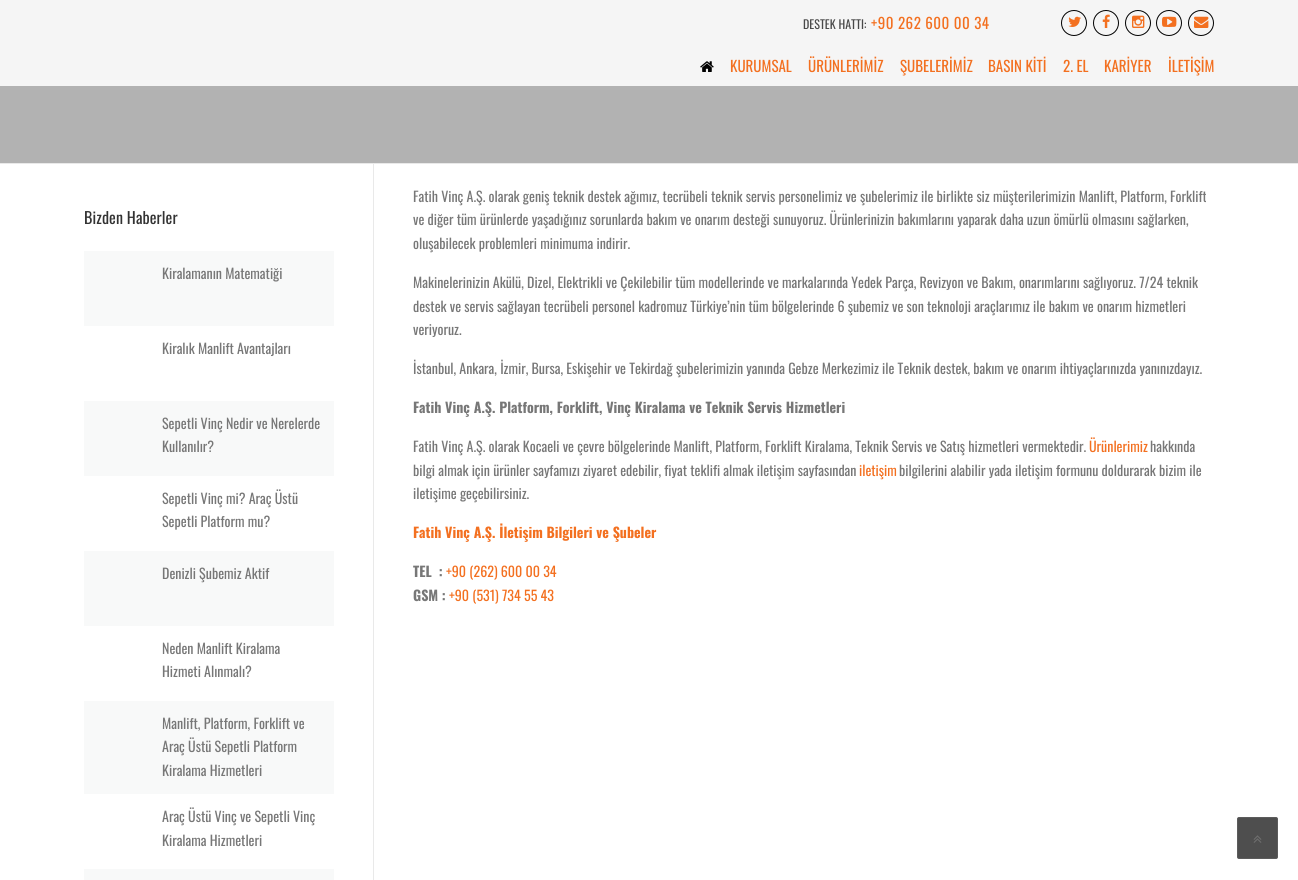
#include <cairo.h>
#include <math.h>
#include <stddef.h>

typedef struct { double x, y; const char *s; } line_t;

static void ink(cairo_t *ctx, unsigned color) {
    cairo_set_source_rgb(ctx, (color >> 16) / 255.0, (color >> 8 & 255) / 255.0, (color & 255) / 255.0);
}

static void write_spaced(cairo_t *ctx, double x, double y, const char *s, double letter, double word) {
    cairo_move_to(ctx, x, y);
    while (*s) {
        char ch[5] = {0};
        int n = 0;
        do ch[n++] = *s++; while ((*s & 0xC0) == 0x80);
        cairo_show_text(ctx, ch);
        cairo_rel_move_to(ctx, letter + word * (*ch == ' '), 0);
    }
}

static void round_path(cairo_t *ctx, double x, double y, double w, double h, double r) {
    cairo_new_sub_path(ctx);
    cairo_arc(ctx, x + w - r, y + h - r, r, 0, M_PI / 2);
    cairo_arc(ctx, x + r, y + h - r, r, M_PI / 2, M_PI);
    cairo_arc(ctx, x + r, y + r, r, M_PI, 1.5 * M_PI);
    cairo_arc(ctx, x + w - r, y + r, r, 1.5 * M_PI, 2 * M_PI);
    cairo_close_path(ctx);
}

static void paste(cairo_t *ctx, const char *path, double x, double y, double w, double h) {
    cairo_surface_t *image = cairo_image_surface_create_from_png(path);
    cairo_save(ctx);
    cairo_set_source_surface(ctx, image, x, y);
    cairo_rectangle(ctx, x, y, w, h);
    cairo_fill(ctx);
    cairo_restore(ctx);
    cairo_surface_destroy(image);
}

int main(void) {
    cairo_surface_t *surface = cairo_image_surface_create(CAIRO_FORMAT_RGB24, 1298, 880);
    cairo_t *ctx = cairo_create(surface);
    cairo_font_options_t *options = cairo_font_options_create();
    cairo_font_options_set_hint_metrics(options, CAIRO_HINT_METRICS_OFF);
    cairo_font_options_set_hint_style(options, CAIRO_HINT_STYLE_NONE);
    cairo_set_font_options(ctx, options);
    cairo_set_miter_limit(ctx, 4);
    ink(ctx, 0xFFFFFF);
    cairo_paint(ctx);
    ink(ctx, 0xB2B2B2);
    cairo_rectangle(ctx, 0, 0, 1298, 163);
    cairo_fill(ctx);
    cairo_set_source_rgba(ctx, 1, 1, 1, 0.87);
    cairo_rectangle(ctx, 0, 0, 1298, 86);
    cairo_fill(ctx);
    cairo_select_font_face(ctx, "Oswald", CAIRO_FONT_SLANT_NORMAL, CAIRO_FONT_WEIGHT_NORMAL);
    cairo_set_font_size(ctx, 12);
    ink(ctx, 0x494949);
    cairo_move_to(ctx, 803, 29);
    cairo_show_text(ctx, "DESTEK HATTI:");
    cairo_set_font_size(ctx, 15);
    ink(ctx, 0xF37020);
    write_spaced(ctx, 871, 29, "+90 262 600 00 34", 0.5, 0);
    cairo_new_path(ctx);
    cairo_arc(ctx, 1074, 23, 12.5, 0, 2 * M_PI);
    ink(ctx, 0x000000);
    cairo_set_line_width(ctx, 1);
    cairo_stroke(ctx);
    paste(ctx, "media/1.png", 1068, 16, 13, 11);
    cairo_arc(ctx, 1106, 23, 12.5, 0, 2 * M_PI);
    cairo_stroke(ctx);
    paste(ctx, "media/2.png", 1102, 14, 8, 14);
    cairo_arc(ctx, 1138, 23, 12.5, 0, 2 * M_PI);
    cairo_stroke(ctx);
    paste(ctx, "media/3.png", 1132, 15, 13, 13);
    cairo_arc(ctx, 1169, 23, 12.5, 0, 2 * M_PI);
    cairo_stroke(ctx);
    paste(ctx, "media/4.png", 1162, 16, 15, 11);
    cairo_arc(ctx, 1201, 23, 12.5, 0, 2 * M_PI);
    cairo_stroke(ctx);
    paste(ctx, "media/5.png", 1194, 16, 15, 12);
    paste(ctx, "media/6.png", 700, 61, 14, 11);
    ink(ctx, 0xF37020);
    {
        static const line_t items[] = {
            {730, 72, "KURUMSAL"},
            {808, 72, "ÜRÜNLERİMİZ"},
            {900, 72, "ŞUBELERİMİZ"},
            {988, 72, "BASIN KİTİ"},
            {1063, 72, "2. EL"},
            {1104, 72, "KARİYER"},
            {1168, 72, "İLETİŞİM"},
        };
        for (size_t i = 0; i < sizeof items / sizeof *items; i++) {
            cairo_move_to(ctx, items[i].x, items[i].y);
            cairo_show_text(ctx, items[i].s);
        }
    }
    ink(ctx, 0xE9E9E9);
    cairo_rectangle(ctx, 0, 163, 1298, 1);
    cairo_fill(ctx);
    cairo_set_font_size(ctx, 16);
    ink(ctx, 0x333333);
    write_spaced(ctx, 84, 224, "Bizden Haberler", 0.1, 0);
    ink(ctx, 0xF8F9F9);
    cairo_rectangle(ctx, 84, 251, 250, 75);
    cairo_fill(ctx);
    cairo_set_font_size(ctx, 14);
    ink(ctx, 0x777777);
    cairo_move_to(ctx, 162, 279);
    cairo_show_text(ctx, "Kiralamanın Matematiği");
    cairo_move_to(ctx, 162, 354);
    cairo_show_text(ctx, "Kiralık Manlift Avantajları");
    ink(ctx, 0xF8F9F9);
    cairo_rectangle(ctx, 84, 401, 250, 75);
    cairo_fill(ctx);
    ink(ctx, 0x777777);
    {
        static const line_t items[] = {
            {162, 429, "Sepetli Vinç Nedir ve Nerelerde"},
            {162, 452, "Kullanılır?"},
            {162, 504, "Sepetli Vinç mi? Araç Üstü"},
            {162, 527, "Sepetli Platform mu?"},
        };
        for (size_t i = 0; i < sizeof items / sizeof *items; i++) {
            cairo_move_to(ctx, items[i].x, items[i].y);
            cairo_show_text(ctx, items[i].s);
        }
    }
    ink(ctx, 0xF8F9F9);
    cairo_rectangle(ctx, 84, 551, 250, 75);
    cairo_fill(ctx);
    ink(ctx, 0x777777);
    {
        static const line_t items[] = {
            {162, 579, "Denizli Şubemiz Aktif"},
            {162, 654, "Neden Manlift Kiralama"},
            {162, 677, "Hizmeti Alınmalı?"},
        };
        for (size_t i = 0; i < sizeof items / sizeof *items; i++) {
            cairo_move_to(ctx, items[i].x, items[i].y);
            cairo_show_text(ctx, items[i].s);
        }
    }
    ink(ctx, 0xF8F9F9);
    cairo_rectangle(ctx, 84, 701, 250, 93);
    cairo_fill(ctx);
    ink(ctx, 0x777777);
    {
        static const line_t items[] = {
            {162, 729, "Manlift, Platform, Forklift ve"},
            {162, 752, "Araç Üstü Sepetli Platform"},
            {162, 776, "Kiralama Hizmetleri"},
            {162, 822, "Araç Üstü Vinç ve Sepetli Vinç"},
            {162, 846, "Kiralama Hizmetleri"},
        };
        for (size_t i = 0; i < sizeof items / sizeof *items; i++) {
            cairo_move_to(ctx, items[i].x, items[i].y);
            cairo_show_text(ctx, items[i].s);
        }
    }
    ink(ctx, 0xF8F9F9);
    cairo_rectangle(ctx, 84, 869, 250, 11);
    cairo_fill(ctx);
    ink(ctx, 0xE9E9E9);
    cairo_rectangle(ctx, 373, 164, 1, 716);
    cairo_fill(ctx);
    ink(ctx, 0x777777);
    {
        static const line_t items[] = {
            {413, 202, "Fatih Vinç A.Ş. olarak geniş teknik destek ağımız, tecrübeli teknik servis personelimiz ve şubelerimiz ile birlikte siz müşterilerimizin Manlift, Platform, Forklift"},
            {413, 225, "ve diğer tüm ürünlerde yaşadığınız sorunlarda bakım ve onarım desteği sunuyoruz. Ürünlerinizin bakımlarını yaparak daha uzun ömürlü olmasını sağlarken,"},
            {413, 249, "oluşabilecek problemleri minimuma indirir."},
            {413, 288, "Makinelerinizin Akülü, Dizel, Elektrikli ve Çekilebilir tüm modellerinde ve markalarında Yedek Parça, Revizyon ve Bakım, onarımlarını sağlıyoruz. 7/24 teknik"},
            {413, 312, "destek ve servis sağlayan tecrübeli personel kadromuz Türkiye’nin tüm bölgelerinde 6 şubemiz ve son teknoloji araçlarımız ile bakım ve onarım hizmetleri"},
            {413, 335, "veriyoruz."},
            {413, 374, "İstanbul, Ankara, İzmir, Bursa, Eskişehir ve Tekirdağ şubelerimizin yanında Gebze Merkezimiz ile Teknik destek, bakım ve onarım ihtiyaçlarınızda yanınızdayız."},
        };
        for (size_t i = 0; i < sizeof items / sizeof *items; i++) {
            cairo_move_to(ctx, items[i].x, items[i].y);
            cairo_show_text(ctx, items[i].s);
        }
    }
    cairo_select_font_face(ctx, "Oswald", CAIRO_FONT_SLANT_NORMAL, CAIRO_FONT_WEIGHT_BOLD);
    write_spaced(ctx, 413, 413, "Fatih Vinç A.Ş. Platform, Forklift, Vinç Kiralama ve Teknik Servis Hizmetleri", 0, 0.25);
    cairo_select_font_face(ctx, "Oswald", CAIRO_FONT_SLANT_NORMAL, CAIRO_FONT_WEIGHT_NORMAL);
    cairo_move_to(ctx, 413, 452);
    cairo_show_text(ctx, "Fatih Vinç A.Ş. olarak Kocaeli ve çevre bölgelerinde Manlift, Platform, Forklift Kiralama, Teknik Servis ve Satış hizmetleri vermektedir.");
    ink(ctx, 0xF37020);
    cairo_move_to(ctx, 1089, 452);
    cairo_show_text(ctx, "Ürünlerimiz");
    ink(ctx, 0x777777);
    cairo_move_to(ctx, 1150, 452);
    cairo_show_text(ctx, "hakkında");
    cairo_move_to(ctx, 413, 476);
    cairo_show_text(ctx, "bilgi almak için ürünler sayfamızı ziyaret edebilir, fiyat teklifi almak iletişim sayfasından");
    ink(ctx, 0xF37020);
    cairo_move_to(ctx, 859, 476);
    cairo_show_text(ctx, "iletişim");
    ink(ctx, 0x777777);
    cairo_move_to(ctx, 899, 476);
    cairo_show_text(ctx, "bilgilerini alabilir yada iletişim formunu doldurarak bizim ile");
    cairo_move_to(ctx, 413, 499);
    cairo_show_text(ctx, "iletişime geçebilirsiniz.");
    cairo_select_font_face(ctx, "Oswald", CAIRO_FONT_SLANT_NORMAL, CAIRO_FONT_WEIGHT_BOLD);
    ink(ctx, 0xF37020);
    write_spaced(ctx, 413, 538, "Fatih Vinç A.Ş. İletişim Bilgileri ve Şubeler", 0, 0.25);
    ink(ctx, 0x777777);
    cairo_move_to(ctx, 413, 577);
    cairo_show_text(ctx, "TEL  :");
    cairo_select_font_face(ctx, "Oswald", CAIRO_FONT_SLANT_NORMAL, CAIRO_FONT_WEIGHT_NORMAL);
    ink(ctx, 0xF37020);
    cairo_move_to(ctx, 446, 577);
    cairo_show_text(ctx, "+90 (262) 600 00 34");
    cairo_select_font_face(ctx, "Oswald", CAIRO_FONT_SLANT_NORMAL, CAIRO_FONT_WEIGHT_BOLD);
    ink(ctx, 0x777777);
    cairo_move_to(ctx, 413, 601);
    cairo_show_text(ctx, "GSM :");
    cairo_select_font_face(ctx, "Oswald", CAIRO_FONT_SLANT_NORMAL, CAIRO_FONT_WEIGHT_NORMAL);
    ink(ctx, 0xF37020);
    cairo_move_to(ctx, 449, 601);
    cairo_show_text(ctx, "+90 (531) 734 55 43");
    ink(ctx, 0x4E4E4E);
    round_path(ctx, 1237.5, 817.5, 40, 41, 1.5);
    cairo_fill_preserve(ctx);
    ink(ctx, 0x5C5C5C);
    cairo_stroke(ctx);
    paste(ctx, "media/7.png", 1253, 835, 9, 8);
    cairo_surface_write_to_png(surface, "image.png");
    cairo_font_options_destroy(options);
    cairo_destroy(ctx);
    cairo_surface_destroy(surface);
    return 0;
}
